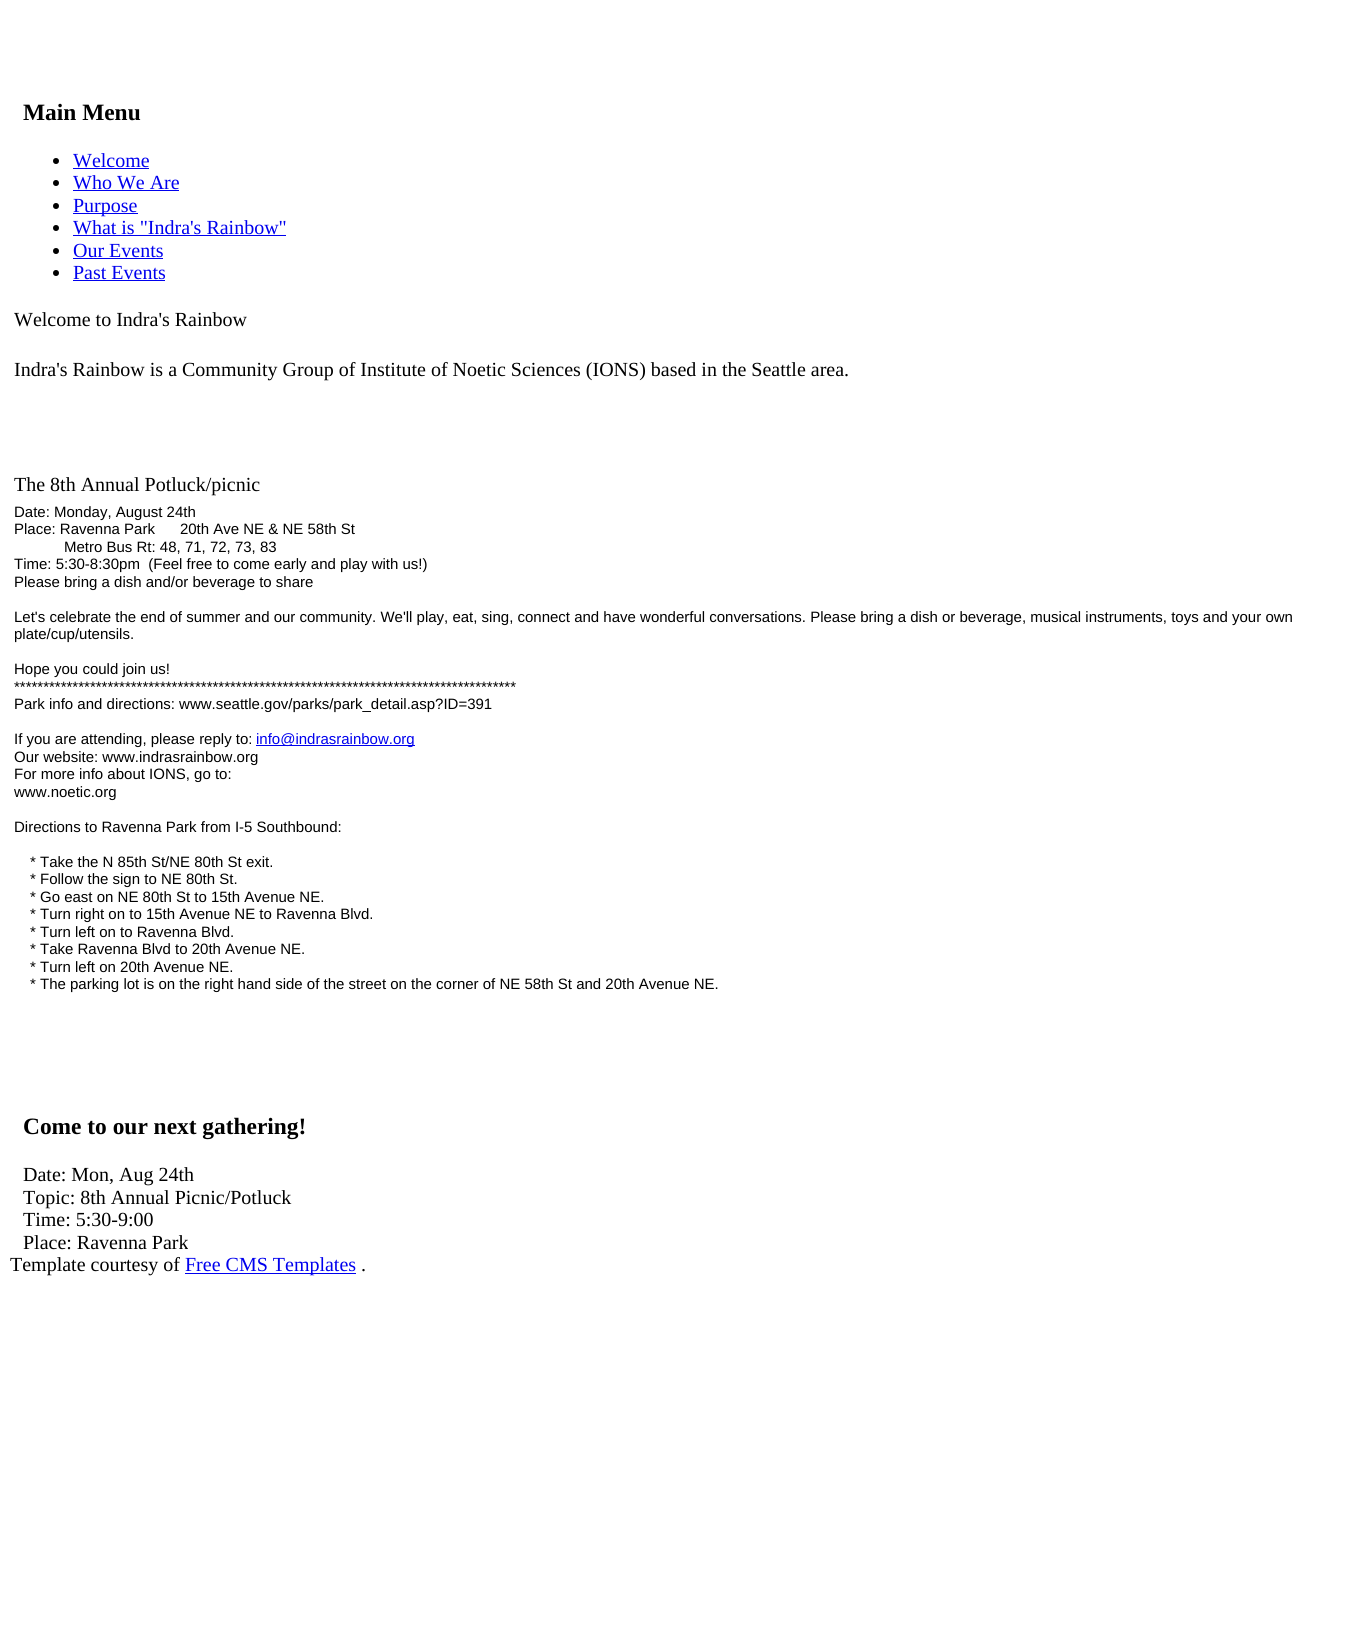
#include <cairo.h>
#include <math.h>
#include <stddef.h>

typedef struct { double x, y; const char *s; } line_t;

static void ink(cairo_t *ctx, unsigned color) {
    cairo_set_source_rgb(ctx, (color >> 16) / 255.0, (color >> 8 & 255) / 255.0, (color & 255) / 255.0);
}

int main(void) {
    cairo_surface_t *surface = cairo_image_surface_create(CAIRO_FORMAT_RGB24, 1357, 1647);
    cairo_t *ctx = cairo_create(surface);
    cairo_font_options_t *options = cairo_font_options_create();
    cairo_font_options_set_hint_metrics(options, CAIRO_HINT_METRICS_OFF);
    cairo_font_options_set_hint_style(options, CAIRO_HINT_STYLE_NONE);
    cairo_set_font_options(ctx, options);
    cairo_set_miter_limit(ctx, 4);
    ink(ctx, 0xFFFFFF);
    cairo_paint(ctx);
    cairo_select_font_face(ctx, "Liberation Serif", CAIRO_FONT_SLANT_NORMAL, CAIRO_FONT_WEIGHT_BOLD);
    cairo_set_font_size(ctx, 23.4);
    ink(ctx, 0x000000);
    cairo_move_to(ctx, 23, 120);
    cairo_show_text(ctx, "Main Menu");
    cairo_new_path(ctx);
    cairo_arc(ctx, 56, 161, 3, 0, 2 * M_PI);
    cairo_fill(ctx);
    cairo_select_font_face(ctx, "Liberation Serif", CAIRO_FONT_SLANT_NORMAL, CAIRO_FONT_WEIGHT_NORMAL);
    cairo_set_font_size(ctx, 20);
    ink(ctx, 0x0000EE);
    cairo_move_to(ctx, 73, 167);
    cairo_show_text(ctx, "Welcome");
    cairo_rectangle(ctx, 73, 168, 76, 1);
    cairo_fill(ctx);
    ink(ctx, 0x000000);
    cairo_arc(ctx, 56, 183, 3, 0, 2 * M_PI);
    cairo_fill(ctx);
    ink(ctx, 0x0000EE);
    cairo_move_to(ctx, 73, 189);
    cairo_show_text(ctx, "Who We Are");
    cairo_rectangle(ctx, 73, 190, 106, 1);
    cairo_fill(ctx);
    ink(ctx, 0x000000);
    cairo_arc(ctx, 56, 206, 3, 0, 2 * M_PI);
    cairo_fill(ctx);
    ink(ctx, 0x0000EE);
    cairo_rectangle(ctx, 73, 213, 65, 1);
    cairo_fill(ctx);
    cairo_move_to(ctx, 73, 212);
    cairo_show_text(ctx, "Purpose");
    ink(ctx, 0x000000);
    cairo_new_path(ctx);
    cairo_arc(ctx, 56, 228, 3, 0, 2 * M_PI);
    cairo_fill(ctx);
    ink(ctx, 0x0000EE);
    cairo_move_to(ctx, 73, 234);
    cairo_show_text(ctx, "What is \"Indra's Rainbow\"");
    cairo_rectangle(ctx, 73, 235, 213, 1);
    cairo_fill(ctx);
    ink(ctx, 0x000000);
    cairo_arc(ctx, 56, 251, 3, 0, 2 * M_PI);
    cairo_fill(ctx);
    ink(ctx, 0x0000EE);
    cairo_move_to(ctx, 73, 257);
    cairo_show_text(ctx, "Our Events");
    cairo_rectangle(ctx, 73, 258, 90, 1);
    cairo_fill(ctx);
    ink(ctx, 0x000000);
    cairo_arc(ctx, 56, 273, 3, 0, 2 * M_PI);
    cairo_fill(ctx);
    ink(ctx, 0x0000EE);
    cairo_move_to(ctx, 73, 279);
    cairo_show_text(ctx, "Past Events");
    cairo_rectangle(ctx, 73, 280, 92, 1);
    cairo_fill(ctx);
    ink(ctx, 0x000000);
    {
        static const line_t items[] = {
            {14, 326, "Welcome to Indra's Rainbow"},
            {14, 376, "Indra's Rainbow is a Community Group of Institute of Noetic Sciences (IONS) based in the Seattle area."},
            {14, 491, "The 8th Annual Potluck/picnic"},
        };
        for (size_t i = 0; i < sizeof items / sizeof *items; i++) {
            cairo_move_to(ctx, items[i].x, items[i].y);
            cairo_show_text(ctx, items[i].s);
        }
    }
    cairo_select_font_face(ctx, "Liberation Sans", CAIRO_FONT_SLANT_NORMAL, CAIRO_FONT_WEIGHT_NORMAL);
    cairo_set_font_size(ctx, 15);
    {
        static const line_t items[] = {
            {14, 517, "Date: Monday, August 24th"},
            {14, 534, "Place: Ravenna Park      20th Ave NE & NE 58th St"},
            {64, 552, "Metro Bus Rt: 48, 71, 72, 73, 83"},
            {14, 569, "Time: 5:30-8:30pm  (Feel free to come early and play with us!)"},
            {14, 587, "Please bring a dish and/or beverage to share"},
            {14, 622, "Let's celebrate the end of summer and our community. We'll play, eat, sing, connect and have wonderful conversations. Please bring a dish or beverage, musical instruments, toys and your own"},
            {14, 639, "plate/cup/utensils."},
            {14, 674, "Hope you could join us!"},
            {14, 692, "**************************************************************************************"},
            {14, 709, "Park info and directions: www.seattle.gov/parks/park_detail.asp?ID=391"},
            {14, 744, "If you are attending, please reply to:"},
        };
        for (size_t i = 0; i < sizeof items / sizeof *items; i++) {
            cairo_move_to(ctx, items[i].x, items[i].y);
            cairo_show_text(ctx, items[i].s);
        }
    }
    ink(ctx, 0x0000EE);
    cairo_rectangle(ctx, 256, 745, 159, 1);
    cairo_fill(ctx);
    cairo_move_to(ctx, 256, 744);
    cairo_show_text(ctx, "info@indrasrainbow.org");
    ink(ctx, 0x000000);
    {
        static const line_t items[] = {
            {14, 762, "Our website: www.indrasrainbow.org"},
            {14, 779, "For more info about IONS, go to:"},
            {14, 797, "www.noetic.org"},
            {14, 832, "Directions to Ravenna Park from I-5 Southbound:"},
            {30, 867, "* Take the N 85th St/NE 80th St exit."},
            {30, 884, "* Follow the sign to NE 80th St."},
            {30, 902, "* Go east on NE 80th St to 15th Avenue NE."},
            {30, 919, "* Turn right on to 15th Avenue NE to Ravenna Blvd."},
            {30, 937, "* Turn left on to Ravenna Blvd."},
            {30, 954, "* Take Ravenna Blvd to 20th Avenue NE."},
            {30, 972, "* Turn left on 20th Avenue NE."},
            {30, 989, "* The parking lot is on the right hand side of the street on the corner of NE 58th St and 20th Avenue NE."},
        };
        for (size_t i = 0; i < sizeof items / sizeof *items; i++) {
            cairo_move_to(ctx, items[i].x, items[i].y);
            cairo_show_text(ctx, items[i].s);
        }
    }
    cairo_select_font_face(ctx, "Liberation Serif", CAIRO_FONT_SLANT_NORMAL, CAIRO_FONT_WEIGHT_BOLD);
    cairo_set_font_size(ctx, 23.4);
    cairo_move_to(ctx, 23, 1134);
    cairo_show_text(ctx, "Come to our next gathering!");
    cairo_select_font_face(ctx, "Liberation Serif", CAIRO_FONT_SLANT_NORMAL, CAIRO_FONT_WEIGHT_NORMAL);
    cairo_set_font_size(ctx, 20);
    {
        static const line_t items[] = {
            {23, 1181, "Date: Mon, Aug 24th"},
            {23, 1204, "Topic: 8th Annual Picnic/Potluck"},
            {23, 1226, "Time: 5:30-9:00"},
            {23, 1249, "Place: Ravenna Park"},
            {10, 1271, "Template courtesy of"},
        };
        for (size_t i = 0; i < sizeof items / sizeof *items; i++) {
            cairo_move_to(ctx, items[i].x, items[i].y);
            cairo_show_text(ctx, items[i].s);
        }
    }
    ink(ctx, 0x0000EE);
    cairo_rectangle(ctx, 185, 1273, 171, 1);
    cairo_fill(ctx);
    cairo_move_to(ctx, 185, 1271);
    cairo_show_text(ctx, "Free CMS Templates");
    ink(ctx, 0x000000);
    cairo_move_to(ctx, 361, 1271);
    cairo_show_text(ctx, ".");
    cairo_surface_write_to_png(surface, "image.png");
    cairo_font_options_destroy(options);
    cairo_destroy(ctx);
    cairo_surface_destroy(surface);
    return 0;
}
